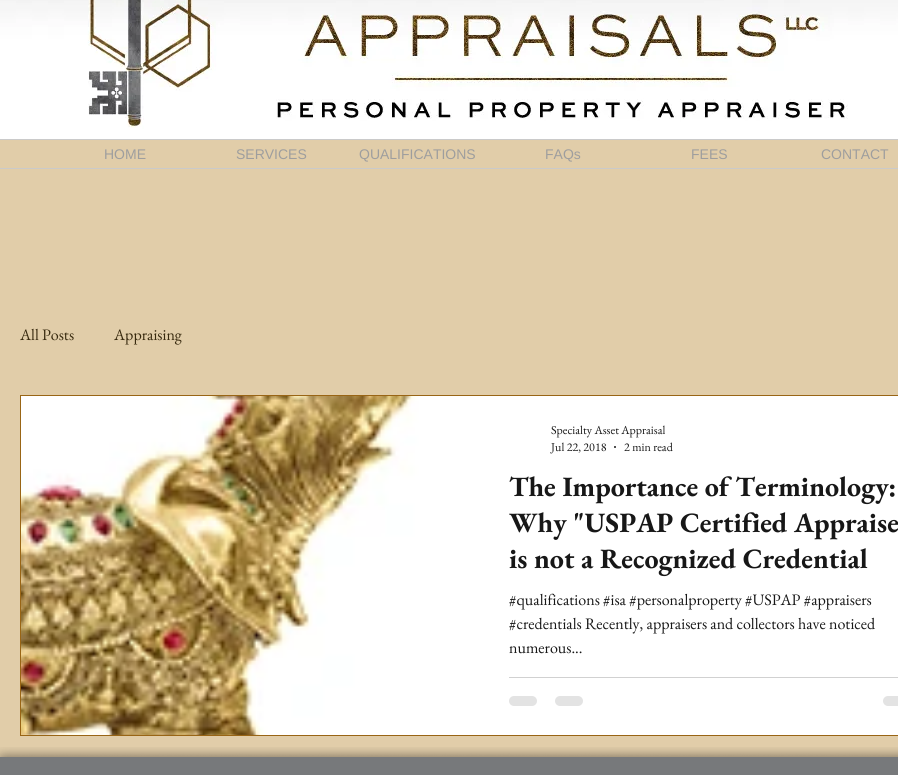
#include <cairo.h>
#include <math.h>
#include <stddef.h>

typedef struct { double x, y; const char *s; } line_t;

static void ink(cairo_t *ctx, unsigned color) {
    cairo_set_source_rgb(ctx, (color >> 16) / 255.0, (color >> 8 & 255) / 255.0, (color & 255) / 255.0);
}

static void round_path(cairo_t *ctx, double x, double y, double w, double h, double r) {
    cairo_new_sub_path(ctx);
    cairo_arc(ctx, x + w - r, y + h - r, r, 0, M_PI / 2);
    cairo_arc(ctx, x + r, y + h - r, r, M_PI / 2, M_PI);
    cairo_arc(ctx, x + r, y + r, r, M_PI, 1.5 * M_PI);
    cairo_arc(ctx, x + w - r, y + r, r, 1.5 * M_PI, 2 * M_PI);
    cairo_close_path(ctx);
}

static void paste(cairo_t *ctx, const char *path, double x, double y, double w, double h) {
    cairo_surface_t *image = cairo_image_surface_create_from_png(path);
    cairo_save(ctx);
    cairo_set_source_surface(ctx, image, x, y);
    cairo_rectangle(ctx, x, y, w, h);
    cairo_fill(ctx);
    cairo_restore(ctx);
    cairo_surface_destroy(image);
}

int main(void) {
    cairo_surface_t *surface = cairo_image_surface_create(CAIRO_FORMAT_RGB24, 898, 775);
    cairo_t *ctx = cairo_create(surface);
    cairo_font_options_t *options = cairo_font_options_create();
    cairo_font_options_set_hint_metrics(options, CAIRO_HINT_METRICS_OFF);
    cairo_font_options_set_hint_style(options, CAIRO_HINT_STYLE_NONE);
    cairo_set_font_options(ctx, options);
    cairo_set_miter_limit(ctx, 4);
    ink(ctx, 0xE1CDA9);
    cairo_paint(ctx);
    paste(ctx, "media/1.png", 0, 0, 898, 139);
    ink(ctx, 0xCACACA);
    cairo_rectangle(ctx, 0, 139, 898, 1);
    cairo_fill(ctx);
    cairo_rectangle(ctx, 0, 168, 898, 1);
    cairo_fill(ctx);
    cairo_select_font_face(ctx, "Liberation Sans", CAIRO_FONT_SLANT_NORMAL, CAIRO_FONT_WEIGHT_NORMAL);
    cairo_set_font_size(ctx, 14);
    ink(ctx, 0x9E9E9E);
    {
        static const line_t items[] = {
            {104, 159, "HOME"},
            {236, 159, "SERVICES"},
            {359, 159, "QUALIFICATIONS"},
            {545, 159, "FAQs"},
            {691, 159, "FEES"},
            {821, 159, "CONTACT"},
        };
        for (size_t i = 0; i < sizeof items / sizeof *items; i++) {
            cairo_move_to(ctx, items[i].x, items[i].y);
            cairo_show_text(ctx, items[i].s);
        }
    }
    cairo_select_font_face(ctx, "EB Garamond", CAIRO_FONT_SLANT_NORMAL, CAIRO_FONT_WEIGHT_NORMAL);
    cairo_set_font_size(ctx, 16);
    ink(ctx, 0x37290E);
    cairo_move_to(ctx, 20, 340);
    cairo_show_text(ctx, "All Posts");
    cairo_move_to(ctx, 114, 340);
    cairo_show_text(ctx, "Appraising");
    cairo_rectangle(ctx, 20.5, 395.5, 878, 340);
    ink(ctx, 0x996515);
    cairo_set_line_width(ctx, 1);
    cairo_stroke(ctx);
    paste(ctx, "media/2.png", 21, 396, 452, 339);
    ink(ctx, 0xFFFFFF);
    cairo_rectangle(ctx, 473, 396, 425, 339);
    cairo_fill(ctx);
    cairo_set_font_size(ctx, 12);
    ink(ctx, 0x171717);
    cairo_move_to(ctx, 551, 434);
    cairo_show_text(ctx, "Specialty Asset Appraisal");
    cairo_move_to(ctx, 551, 451);
    cairo_show_text(ctx, "Jul 22, 2018");
    cairo_new_path(ctx);
    cairo_arc(ctx, 615, 447, 1, 0, 2 * M_PI);
    cairo_fill(ctx);
    cairo_move_to(ctx, 624, 451);
    cairo_show_text(ctx, "2 min read");
    cairo_select_font_face(ctx, "EB Garamond", CAIRO_FONT_SLANT_NORMAL, CAIRO_FONT_WEIGHT_BOLD);
    cairo_set_font_size(ctx, 28);
    {
        static const line_t items[] = {
            {509, 496, "The Importance of Terminology:"},
            {509, 532, "Why \"USPAP Certified Appraise"},
            {509, 568, "is not a Recognized Credential"},
        };
        for (size_t i = 0; i < sizeof items / sizeof *items; i++) {
            cairo_move_to(ctx, items[i].x, items[i].y);
            cairo_show_text(ctx, items[i].s);
        }
    }
    cairo_select_font_face(ctx, "EB Garamond", CAIRO_FONT_SLANT_NORMAL, CAIRO_FONT_WEIGHT_NORMAL);
    cairo_set_font_size(ctx, 16);
    {
        static const line_t items[] = {
            {509, 605, "#qualifications #isa #personalproperty #USPAP #appraisers"},
            {509, 629, "#credentials Recently, appraisers and collectors have noticed"},
            {509, 653, "numerous..."},
        };
        for (size_t i = 0; i < sizeof items / sizeof *items; i++) {
            cairo_move_to(ctx, items[i].x, items[i].y);
            cairo_show_text(ctx, items[i].s);
        }
    }
    ink(ctx, 0xD1D1D1);
    cairo_rectangle(ctx, 509, 677, 389, 1);
    cairo_fill(ctx);
    ink(ctx, 0xE3E3E3);
    round_path(ctx, 509, 696, 28, 10, 5);
    cairo_fill(ctx);
    round_path(ctx, 555, 696, 28, 10, 5);
    cairo_fill(ctx);
    round_path(ctx, 883, 696, 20, 10, 5);
    cairo_fill(ctx);
    paste(ctx, "media/3.png", 0, 747, 35, 10);
    paste(ctx, "media/4.png", 35, 747, 863, 10);
    ink(ctx, 0x77797B);
    cairo_rectangle(ctx, 0, 757, 898, 18);
    cairo_fill(ctx);
    cairo_surface_write_to_png(surface, "image.png");
    cairo_font_options_destroy(options);
    cairo_destroy(ctx);
    cairo_surface_destroy(surface);
    return 0;
}
